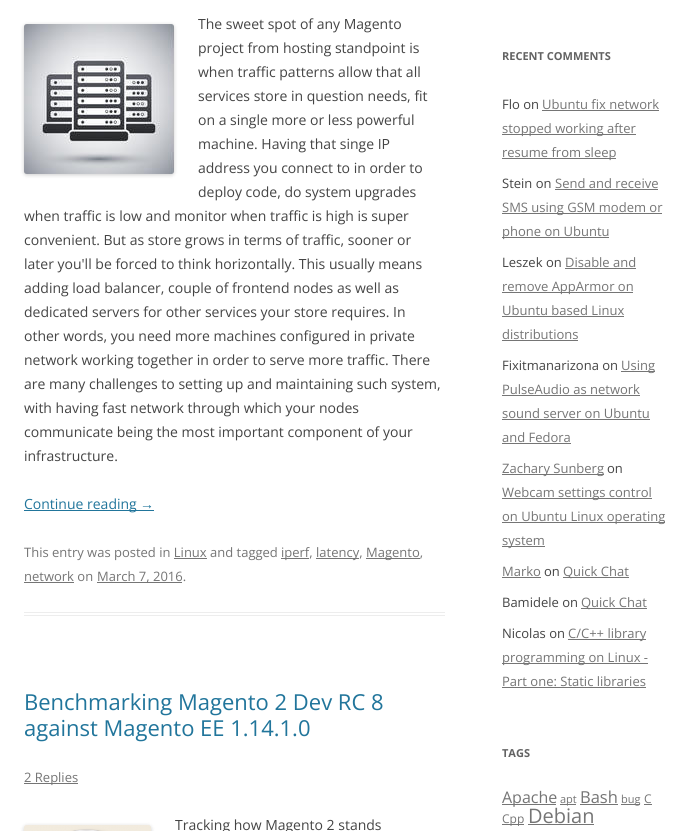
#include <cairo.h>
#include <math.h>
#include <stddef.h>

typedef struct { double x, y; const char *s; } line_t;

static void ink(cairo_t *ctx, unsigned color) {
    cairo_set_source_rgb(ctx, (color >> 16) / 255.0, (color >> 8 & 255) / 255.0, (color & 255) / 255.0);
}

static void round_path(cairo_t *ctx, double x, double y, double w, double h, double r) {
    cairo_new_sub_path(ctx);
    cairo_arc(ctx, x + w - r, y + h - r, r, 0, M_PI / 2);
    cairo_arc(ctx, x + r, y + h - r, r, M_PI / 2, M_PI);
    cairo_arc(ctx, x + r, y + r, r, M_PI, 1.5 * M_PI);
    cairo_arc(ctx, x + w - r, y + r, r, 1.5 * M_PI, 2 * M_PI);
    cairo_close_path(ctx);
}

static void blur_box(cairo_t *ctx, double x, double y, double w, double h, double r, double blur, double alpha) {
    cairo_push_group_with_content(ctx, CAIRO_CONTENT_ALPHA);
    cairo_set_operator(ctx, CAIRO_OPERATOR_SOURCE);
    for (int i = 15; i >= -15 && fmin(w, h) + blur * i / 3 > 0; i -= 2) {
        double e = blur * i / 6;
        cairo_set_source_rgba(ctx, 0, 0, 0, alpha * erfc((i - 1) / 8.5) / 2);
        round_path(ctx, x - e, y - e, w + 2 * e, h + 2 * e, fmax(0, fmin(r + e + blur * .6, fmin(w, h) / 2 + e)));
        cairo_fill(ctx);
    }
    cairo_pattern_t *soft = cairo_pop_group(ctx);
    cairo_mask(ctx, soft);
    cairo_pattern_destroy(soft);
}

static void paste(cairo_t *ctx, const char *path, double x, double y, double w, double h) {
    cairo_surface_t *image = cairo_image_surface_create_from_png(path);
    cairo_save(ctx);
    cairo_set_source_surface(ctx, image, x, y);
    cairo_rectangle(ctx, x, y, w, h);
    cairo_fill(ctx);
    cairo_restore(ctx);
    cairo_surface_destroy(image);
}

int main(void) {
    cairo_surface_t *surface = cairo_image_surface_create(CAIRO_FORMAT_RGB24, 694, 831);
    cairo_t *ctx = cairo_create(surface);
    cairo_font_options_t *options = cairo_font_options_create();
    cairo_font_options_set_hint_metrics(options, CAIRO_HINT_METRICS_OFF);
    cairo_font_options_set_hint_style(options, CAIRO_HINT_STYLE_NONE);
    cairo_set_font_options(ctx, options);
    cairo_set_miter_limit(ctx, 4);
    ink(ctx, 0xFFFFFF);
    cairo_paint(ctx);
    ink(ctx, 0xEDEDED);
    cairo_rectangle(ctx, 24, 612, 421, 1);
    cairo_fill(ctx);
    cairo_rectangle(ctx, 24, 615, 421, 1);
    cairo_fill(ctx);
    ink(ctx, 0x000000);
    blur_box(ctx, 24, 25, 150, 150, 3, 2, 0.2);
    paste(ctx, "media/1.png", 24, 24, 150, 150);
    cairo_select_font_face(ctx, "Open Sans", CAIRO_FONT_SLANT_NORMAL, CAIRO_FONT_WEIGHT_NORMAL);
    cairo_set_font_size(ctx, 14);
    ink(ctx, 0x444444);
    {
        static const line_t items[] = {
            {198, 29, "The sweet spot of any Magento"},
            {198, 53, "project from hosting standpoint is"},
            {198, 77, "when traffic patterns allow that all"},
            {198, 101, "services store in question needs, fit"},
            {198, 125, "on a single more or less powerful"},
            {198, 149, "machine. Having that singe IP"},
            {198, 173, "address you connect to in order to"},
            {198, 197, "deploy code, do system upgrades"},
            {24, 221, "when traffic is low and monitor when traffic is high is super"},
            {24, 245, "convenient. But as store grows in terms of traffic, sooner or"},
            {24, 269, "later you'll be forced to think horizontally. This usually means"},
            {24, 293, "adding load balancer, couple of frontend nodes as well as"},
            {24, 317, "dedicated servers for other services your store requires. In"},
            {24, 341, "other words, you need more machines configured in private"},
            {24, 365, "network working together in order to serve more traffic. There"},
            {24, 389, "are many challenges to setting up and maintaining such system,"},
            {24, 413, "with having fast network through which your nodes"},
            {24, 437, "communicate being the most important component of your"},
            {24, 461, "infrastructure."},
        };
        for (size_t i = 0; i < sizeof items / sizeof *items; i++) {
            cairo_move_to(ctx, items[i].x, items[i].y);
            cairo_show_text(ctx, items[i].s);
        }
    }
    ink(ctx, 0x21759B);
    cairo_rectangle(ctx, 24, 510, 130, 1);
    cairo_fill(ctx);
    cairo_move_to(ctx, 24, 509);
    cairo_show_text(ctx, "Continue reading");
    cairo_select_font_face(ctx, "Liberation Sans", CAIRO_FONT_SLANT_NORMAL, CAIRO_FONT_WEIGHT_NORMAL);
    cairo_move_to(ctx, 140, 509);
    cairo_show_text(ctx, "→");
    cairo_select_font_face(ctx, "Open Sans", CAIRO_FONT_SLANT_NORMAL, CAIRO_FONT_WEIGHT_NORMAL);
    cairo_set_font_size(ctx, 13);
    ink(ctx, 0x757575);
    cairo_move_to(ctx, 24, 557);
    cairo_show_text(ctx, "This entry was posted in Linux and tagged");
    cairo_rectangle(ctx, 281, 558, 28, 1);
    cairo_fill(ctx);
    cairo_move_to(ctx, 281, 557);
    cairo_show_text(ctx, "iperf,");
    cairo_rectangle(ctx, 316, 558, 43, 1);
    cairo_fill(ctx);
    cairo_move_to(ctx, 316, 557);
    cairo_show_text(ctx, "latency,");
    cairo_rectangle(ctx, 366, 558, 54, 1);
    cairo_fill(ctx);
    cairo_move_to(ctx, 366, 557);
    cairo_show_text(ctx, "Magento,");
    cairo_rectangle(ctx, 174, 558, 33, 1);
    cairo_fill(ctx);
    cairo_move_to(ctx, 24, 581);
    cairo_show_text(ctx, "network on");
    cairo_rectangle(ctx, 24, 582, 50, 1);
    cairo_fill(ctx);
    cairo_rectangle(ctx, 97, 582, 85, 1);
    cairo_fill(ctx);
    cairo_move_to(ctx, 97, 581);
    cairo_show_text(ctx, "March 7, 2016.");
    cairo_set_font_size(ctx, 22);
    ink(ctx, 0x21759B);
    cairo_move_to(ctx, 24, 710);
    cairo_show_text(ctx, "Benchmarking Magento 2 Dev RC 8");
    cairo_move_to(ctx, 24, 736);
    cairo_show_text(ctx, "against Magento EE 1.14.1.0");
    ink(ctx, 0x757575);
    cairo_rectangle(ctx, 24, 783, 54, 1);
    cairo_fill(ctx);
    cairo_set_font_size(ctx, 13);
    cairo_move_to(ctx, 24, 782);
    cairo_show_text(ctx, "2 Replies");
    ink(ctx, 0x000000);
    blur_box(ctx, 24, 826, 127, 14, 3, 2, 0.2);
    paste(ctx, "media/2.png", 24, 825, 127, 6);
    cairo_set_font_size(ctx, 14);
    ink(ctx, 0x444444);
    cairo_move_to(ctx, 175, 830);
    cairo_show_text(ctx, "Tracking how Magento 2 stands");
    cairo_select_font_face(ctx, "Open Sans", CAIRO_FONT_SLANT_NORMAL, CAIRO_FONT_WEIGHT_BOLD);
    cairo_set_font_size(ctx, 11);
    ink(ctx, 0x636363);
    cairo_move_to(ctx, 502, 60);
    cairo_show_text(ctx, "RECENT COMMENTS");
    cairo_select_font_face(ctx, "Open Sans", CAIRO_FONT_SLANT_NORMAL, CAIRO_FONT_WEIGHT_NORMAL);
    cairo_set_font_size(ctx, 13);
    ink(ctx, 0x444444);
    cairo_move_to(ctx, 502, 109);
    cairo_show_text(ctx, "Flo on");
    ink(ctx, 0x757575);
    cairo_move_to(ctx, 542, 109);
    cairo_show_text(ctx, "Ubuntu fix network");
    cairo_rectangle(ctx, 542, 110, 117, 1);
    cairo_fill(ctx);
    cairo_rectangle(ctx, 502, 134, 134, 1);
    cairo_fill(ctx);
    cairo_move_to(ctx, 502, 133);
    cairo_show_text(ctx, "stopped working after");
    cairo_rectangle(ctx, 502, 158, 114, 1);
    cairo_fill(ctx);
    cairo_move_to(ctx, 502, 157);
    cairo_show_text(ctx, "resume from sleep");
    ink(ctx, 0x444444);
    cairo_move_to(ctx, 502, 188);
    cairo_show_text(ctx, "Stein on");
    ink(ctx, 0x757575);
    cairo_move_to(ctx, 555, 188);
    cairo_show_text(ctx, "Send and receive");
    cairo_rectangle(ctx, 555, 189, 103, 1);
    cairo_fill(ctx);
    cairo_rectangle(ctx, 502, 213, 160, 1);
    cairo_fill(ctx);
    cairo_move_to(ctx, 502, 212);
    cairo_show_text(ctx, "SMS using GSM modem or");
    cairo_rectangle(ctx, 502, 237, 107, 1);
    cairo_fill(ctx);
    cairo_move_to(ctx, 502, 236);
    cairo_show_text(ctx, "phone on Ubuntu");
    ink(ctx, 0x444444);
    cairo_move_to(ctx, 502, 267);
    cairo_show_text(ctx, "Leszek on");
    ink(ctx, 0x757575);
    cairo_move_to(ctx, 565, 267);
    cairo_show_text(ctx, "Disable and");
    cairo_rectangle(ctx, 565, 268, 71, 1);
    cairo_fill(ctx);
    cairo_rectangle(ctx, 502, 292, 131, 1);
    cairo_fill(ctx);
    cairo_move_to(ctx, 502, 291);
    cairo_show_text(ctx, "remove AppArmor on");
    cairo_move_to(ctx, 502, 315);
    cairo_show_text(ctx, "Ubuntu based Linux");
    cairo_rectangle(ctx, 502, 316, 122, 1);
    cairo_fill(ctx);
    cairo_move_to(ctx, 502, 339);
    cairo_show_text(ctx, "distributions");
    cairo_rectangle(ctx, 502, 340, 76, 1);
    cairo_fill(ctx);
    ink(ctx, 0x444444);
    cairo_move_to(ctx, 502, 370);
    cairo_show_text(ctx, "Fixitmanarizona on");
    ink(ctx, 0x757575);
    cairo_rectangle(ctx, 621, 371, 34, 1);
    cairo_fill(ctx);
    cairo_move_to(ctx, 621, 370);
    cairo_show_text(ctx, "Using");
    cairo_move_to(ctx, 502, 394);
    cairo_show_text(ctx, "PulseAudio as network");
    cairo_rectangle(ctx, 502, 395, 138, 1);
    cairo_fill(ctx);
    cairo_move_to(ctx, 502, 418);
    cairo_show_text(ctx, "sound server on Ubuntu");
    cairo_rectangle(ctx, 502, 419, 148, 1);
    cairo_fill(ctx);
    cairo_move_to(ctx, 502, 442);
    cairo_show_text(ctx, "and Fedora");
    cairo_rectangle(ctx, 502, 443, 69, 1);
    cairo_fill(ctx);
    cairo_rectangle(ctx, 502, 474, 102, 1);
    cairo_fill(ctx);
    cairo_move_to(ctx, 502, 473);
    cairo_show_text(ctx, "Zachary Sunberg");
    ink(ctx, 0x444444);
    cairo_move_to(ctx, 607, 473);
    cairo_show_text(ctx, "on");
    ink(ctx, 0x757575);
    cairo_rectangle(ctx, 502, 498, 150, 1);
    cairo_fill(ctx);
    cairo_move_to(ctx, 502, 497);
    cairo_show_text(ctx, "Webcam settings control");
    cairo_rectangle(ctx, 502, 522, 163, 1);
    cairo_fill(ctx);
    cairo_move_to(ctx, 502, 521);
    cairo_show_text(ctx, "on Ubuntu Linux operating");
    cairo_rectangle(ctx, 502, 546, 43, 1);
    cairo_fill(ctx);
    cairo_move_to(ctx, 502, 545);
    cairo_show_text(ctx, "system");
    cairo_move_to(ctx, 502, 576);
    cairo_show_text(ctx, "Marko");
    cairo_rectangle(ctx, 502, 577, 39, 1);
    cairo_fill(ctx);
    ink(ctx, 0x444444);
    cairo_move_to(ctx, 544, 576);
    cairo_show_text(ctx, "on");
    ink(ctx, 0x757575);
    cairo_rectangle(ctx, 563, 577, 66, 1);
    cairo_fill(ctx);
    cairo_move_to(ctx, 563, 576);
    cairo_show_text(ctx, "Quick Chat");
    ink(ctx, 0x444444);
    cairo_move_to(ctx, 502, 607);
    cairo_show_text(ctx, "Bamidele on");
    ink(ctx, 0x757575);
    cairo_rectangle(ctx, 581, 608, 66, 1);
    cairo_fill(ctx);
    cairo_move_to(ctx, 581, 607);
    cairo_show_text(ctx, "Quick Chat");
    ink(ctx, 0x444444);
    cairo_move_to(ctx, 502, 638);
    cairo_show_text(ctx, "Nicolas on");
    ink(ctx, 0x757575);
    cairo_rectangle(ctx, 568, 639, 78, 1);
    cairo_fill(ctx);
    cairo_move_to(ctx, 568, 638);
    cairo_show_text(ctx, "C/C++ library");
    cairo_rectangle(ctx, 502, 663, 146, 1);
    cairo_fill(ctx);
    cairo_move_to(ctx, 502, 662);
    cairo_show_text(ctx, "programming on Linux -");
    cairo_move_to(ctx, 502, 686);
    cairo_show_text(ctx, "Part one: Static libraries");
    cairo_rectangle(ctx, 502, 687, 144, 1);
    cairo_fill(ctx);
    cairo_select_font_face(ctx, "Open Sans", CAIRO_FONT_SLANT_NORMAL, CAIRO_FONT_WEIGHT_BOLD);
    cairo_set_font_size(ctx, 11);
    ink(ctx, 0x636363);
    cairo_move_to(ctx, 502, 757);
    cairo_show_text(ctx, "TAGS");
    ink(ctx, 0x757575);
    cairo_rectangle(ctx, 502, 804, 54, 1);
    cairo_fill(ctx);
    cairo_select_font_face(ctx, "Open Sans", CAIRO_FONT_SLANT_NORMAL, CAIRO_FONT_WEIGHT_NORMAL);
    cairo_set_font_size(ctx, 16);
    cairo_move_to(ctx, 502, 803);
    cairo_show_text(ctx, "Apache");
    cairo_rectangle(ctx, 560, 804, 16, 1);
    cairo_fill(ctx);
    cairo_set_font_size(ctx, 11);
    cairo_move_to(ctx, 560, 803);
    cairo_show_text(ctx, "apt");
    cairo_set_font_size(ctx, 16.5);
    cairo_move_to(ctx, 580, 803);
    cairo_show_text(ctx, "Bash");
    cairo_rectangle(ctx, 580, 804, 38, 1);
    cairo_fill(ctx);
    cairo_rectangle(ctx, 621, 804, 19, 1);
    cairo_fill(ctx);
    cairo_set_font_size(ctx, 11);
    cairo_move_to(ctx, 621, 803);
    cairo_show_text(ctx, "bug");
    cairo_set_font_size(ctx, 12);
    cairo_move_to(ctx, 644, 803);
    cairo_show_text(ctx, "C");
    cairo_rectangle(ctx, 644, 804, 8, 1);
    cairo_fill(ctx);
    cairo_rectangle(ctx, 502, 824, 22, 1);
    cairo_fill(ctx);
    cairo_move_to(ctx, 502, 823);
    cairo_show_text(ctx, "Cpp");
    cairo_set_font_size(ctx, 20);
    cairo_move_to(ctx, 528, 823);
    cairo_show_text(ctx, "Debian");
    cairo_rectangle(ctx, 528, 824, 66, 1);
    cairo_fill(ctx);
    cairo_surface_write_to_png(surface, "image.png");
    cairo_font_options_destroy(options);
    cairo_destroy(ctx);
    cairo_surface_destroy(surface);
    return 0;
}
